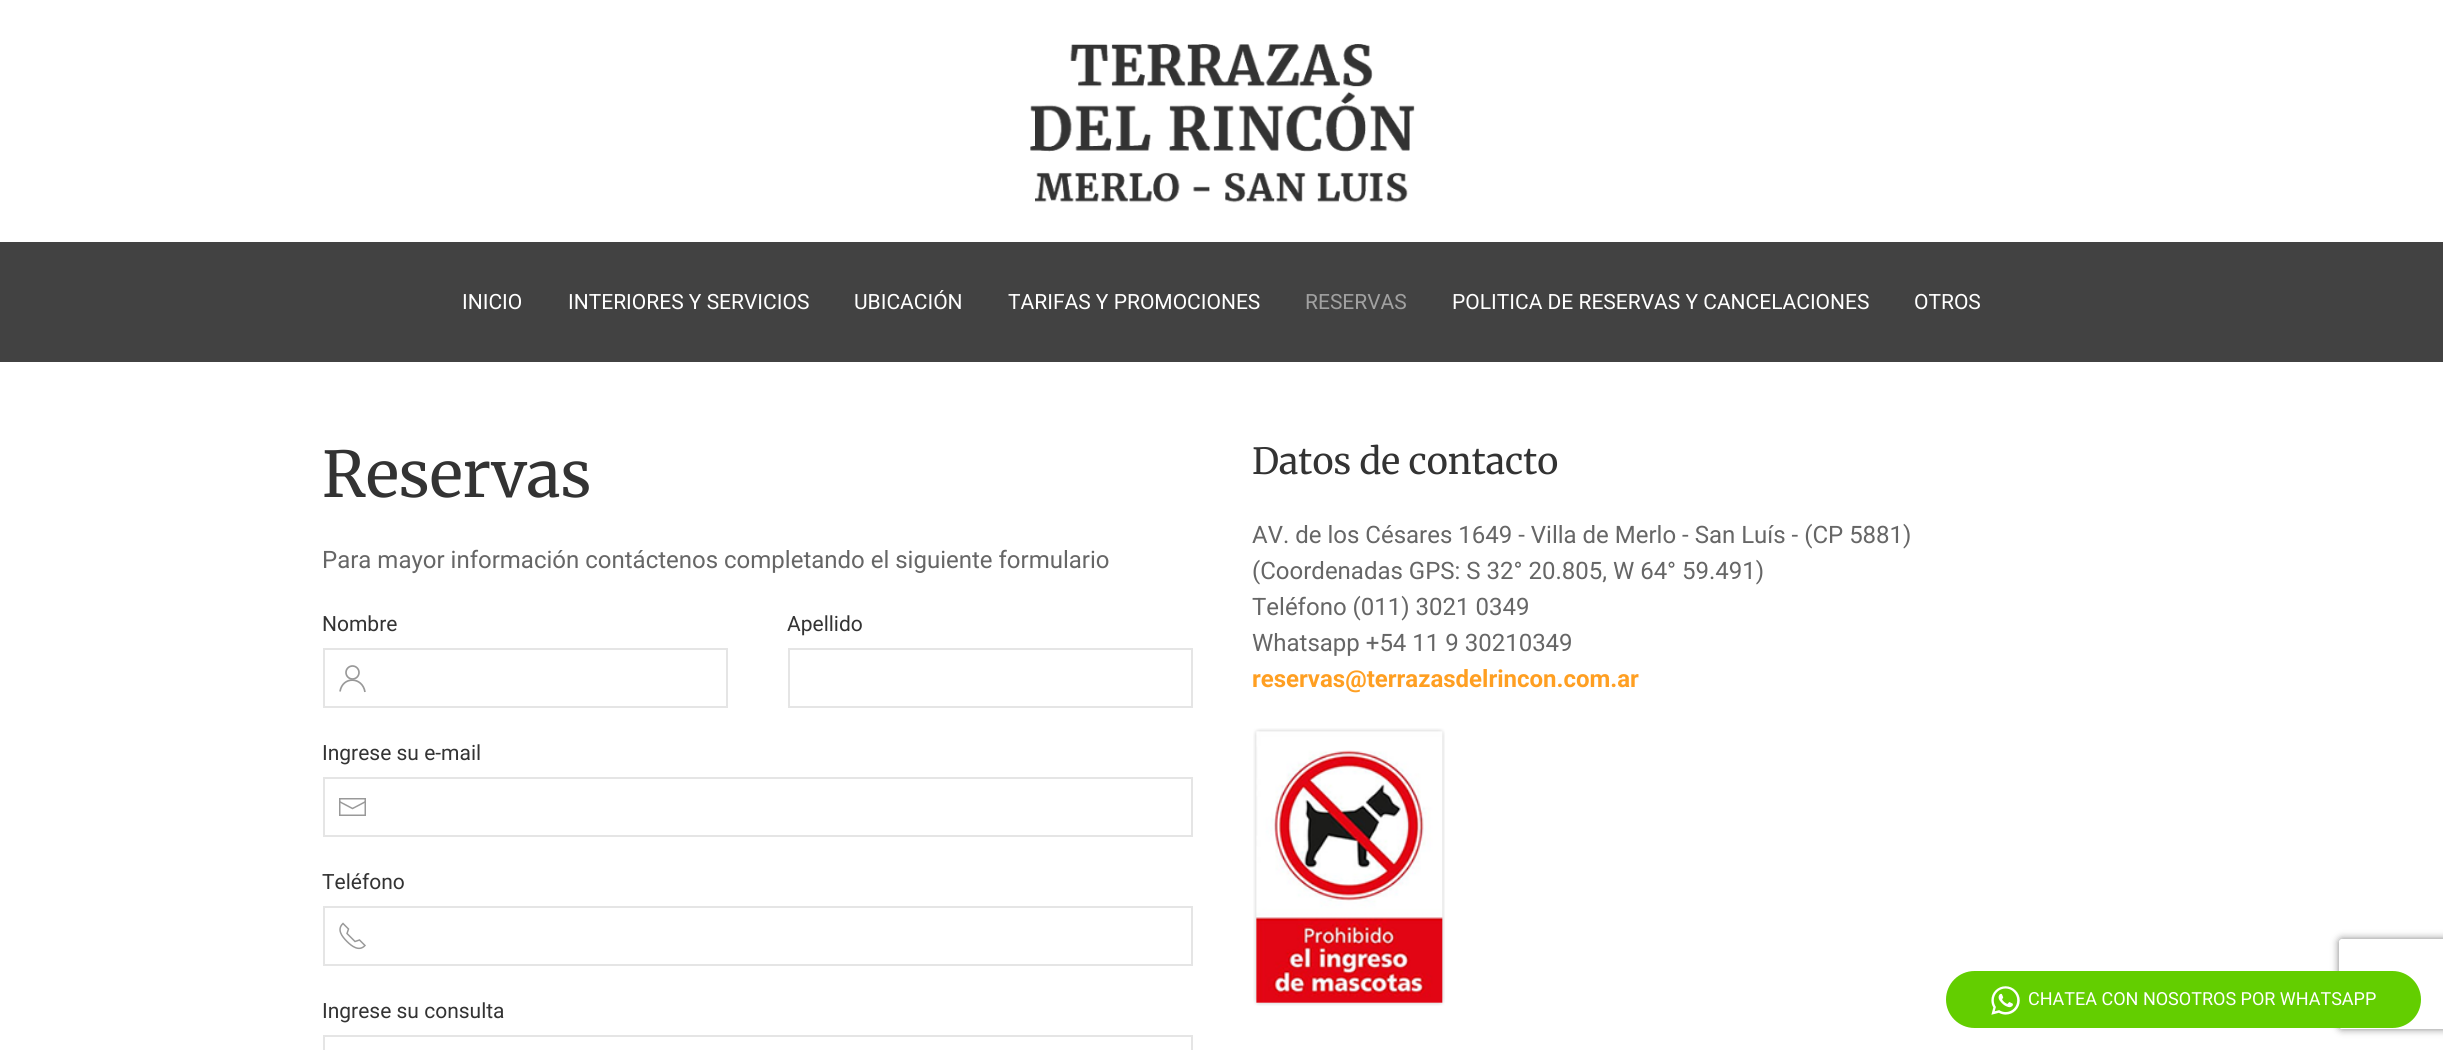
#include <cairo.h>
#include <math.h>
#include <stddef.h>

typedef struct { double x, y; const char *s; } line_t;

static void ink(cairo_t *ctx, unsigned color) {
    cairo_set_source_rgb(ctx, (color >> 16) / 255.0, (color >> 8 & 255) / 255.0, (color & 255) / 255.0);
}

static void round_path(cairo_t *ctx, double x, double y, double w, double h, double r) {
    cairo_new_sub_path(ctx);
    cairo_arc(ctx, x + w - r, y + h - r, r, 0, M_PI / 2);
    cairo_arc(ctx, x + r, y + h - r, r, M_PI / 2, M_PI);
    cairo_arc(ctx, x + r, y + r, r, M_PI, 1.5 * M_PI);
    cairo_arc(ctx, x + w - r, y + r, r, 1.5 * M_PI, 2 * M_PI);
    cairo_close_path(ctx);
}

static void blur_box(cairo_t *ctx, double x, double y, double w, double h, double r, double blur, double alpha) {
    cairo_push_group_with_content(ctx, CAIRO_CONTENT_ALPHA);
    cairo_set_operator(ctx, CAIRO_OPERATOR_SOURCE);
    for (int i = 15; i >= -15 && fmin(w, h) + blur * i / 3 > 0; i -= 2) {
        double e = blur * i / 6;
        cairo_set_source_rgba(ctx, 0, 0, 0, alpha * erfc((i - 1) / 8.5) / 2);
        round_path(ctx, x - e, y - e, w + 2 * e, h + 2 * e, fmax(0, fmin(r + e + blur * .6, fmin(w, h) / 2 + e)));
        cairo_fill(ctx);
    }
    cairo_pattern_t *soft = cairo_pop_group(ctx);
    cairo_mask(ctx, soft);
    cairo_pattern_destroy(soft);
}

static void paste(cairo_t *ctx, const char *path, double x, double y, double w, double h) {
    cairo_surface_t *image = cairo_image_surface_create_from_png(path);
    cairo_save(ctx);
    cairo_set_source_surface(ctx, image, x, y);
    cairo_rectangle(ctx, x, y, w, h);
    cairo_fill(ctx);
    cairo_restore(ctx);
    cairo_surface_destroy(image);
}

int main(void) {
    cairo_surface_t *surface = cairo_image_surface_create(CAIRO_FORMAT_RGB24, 2443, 1050);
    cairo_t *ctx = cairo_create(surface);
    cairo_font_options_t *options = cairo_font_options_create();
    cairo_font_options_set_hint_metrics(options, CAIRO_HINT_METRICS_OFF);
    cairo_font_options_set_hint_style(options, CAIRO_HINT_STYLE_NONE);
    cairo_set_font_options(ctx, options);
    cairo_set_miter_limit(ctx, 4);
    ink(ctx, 0xFFFFFF);
    cairo_paint(ctx);
    paste(ctx, "media/1.png", 1030, 44, 385, 159);
    ink(ctx, 0x424242);
    cairo_rectangle(ctx, 0, 242, 2443, 120);
    cairo_fill(ctx);
    cairo_select_font_face(ctx, "Roboto", CAIRO_FONT_SLANT_NORMAL, CAIRO_FONT_WEIGHT_NORMAL);
    cairo_set_font_size(ctx, 21);
    ink(ctx, 0xFFFFFF);
    {
        static const line_t items[] = {
            {462, 309, "INICIO"},
            {568, 309, "INTERIORES Y SERVICIOS"},
            {854, 309, "UBICACIÓN"},
            {1008, 309, "TARIFAS Y PROMOCIONES"},
        };
        for (size_t i = 0; i < sizeof items / sizeof *items; i++) {
            cairo_move_to(ctx, items[i].x, items[i].y);
            cairo_show_text(ctx, items[i].s);
        }
    }
    ink(ctx, 0xA1A1A1);
    cairo_move_to(ctx, 1305, 309);
    cairo_show_text(ctx, "RESERVAS");
    ink(ctx, 0xFFFFFF);
    cairo_move_to(ctx, 1452, 309);
    cairo_show_text(ctx, "POLITICA DE RESERVAS Y CANCELACIONES");
    cairo_move_to(ctx, 1914, 309);
    cairo_show_text(ctx, "OTROS");
    cairo_select_font_face(ctx, "Merriweather Light", CAIRO_FONT_SLANT_NORMAL, CAIRO_FONT_WEIGHT_NORMAL);
    cairo_set_font_size(ctx, 63);
    ink(ctx, 0x333333);
    cairo_move_to(ctx, 322, 497);
    cairo_show_text(ctx, "Reservas");
    cairo_select_font_face(ctx, "Roboto", CAIRO_FONT_SLANT_NORMAL, CAIRO_FONT_WEIGHT_NORMAL);
    cairo_set_font_size(ctx, 24);
    ink(ctx, 0x666666);
    cairo_move_to(ctx, 322, 568);
    cairo_show_text(ctx, "Para mayor información contáctenos completando el siguiente formulario");
    cairo_set_font_size(ctx, 21);
    ink(ctx, 0x333333);
    cairo_move_to(ctx, 322, 631);
    cairo_show_text(ctx, "Nombre");
    cairo_rectangle(ctx, 324, 649, 403, 58);
    ink(ctx, 0xE5E5E5);
    cairo_stroke(ctx);
    cairo_arc(ctx, 352.5, 672.5, 6.5, 0, 2 * M_PI);
    ink(ctx, 0x999999);
    cairo_set_line_width(ctx, 1.7);
    cairo_stroke(ctx);
    cairo_new_path(ctx);
    cairo_move_to(ctx, 340, 691.5);
    cairo_curve_to(ctx, 342.5, 676, 362.5, 676.5, 365, 692);
    cairo_stroke(ctx);
    ink(ctx, 0x333333);
    cairo_move_to(ctx, 787, 631);
    cairo_show_text(ctx, "Apellido");
    cairo_rectangle(ctx, 789, 649, 403, 58);
    ink(ctx, 0xE5E5E5);
    cairo_set_line_width(ctx, 2);
    cairo_stroke(ctx);
    ink(ctx, 0x333333);
    cairo_move_to(ctx, 322, 760);
    cairo_show_text(ctx, "Ingrese su e-mail");
    cairo_rectangle(ctx, 324, 778, 868, 58);
    ink(ctx, 0xE5E5E5);
    cairo_stroke(ctx);
    paste(ctx, "media/2.png", 339, 798, 27, 18);
    ink(ctx, 0x333333);
    cairo_move_to(ctx, 322, 889);
    cairo_show_text(ctx, "Teléfono");
    cairo_rectangle(ctx, 324, 907, 868, 58);
    ink(ctx, 0xE5E5E5);
    cairo_stroke(ctx);
    cairo_new_path(ctx);
    cairo_move_to(ctx, 347, 941.5);
    cairo_curve_to(ctx, 351.5, 946, 359, 952, 365, 945.5);
    cairo_line_to(ctx, 359.5, 940);
    cairo_line_to(ctx, 355, 941.5);
    cairo_line_to(ctx, 347, 933.5);
    cairo_line_to(ctx, 348.5, 929);
    cairo_line_to(ctx, 343, 923.5);
    cairo_curve_to(ctx, 336.5, 929.5, 342, 936.5, 347, 941.5);
    ink(ctx, 0x999999);
    cairo_set_line_width(ctx, 1.5);
    cairo_stroke(ctx);
    ink(ctx, 0x333333);
    cairo_move_to(ctx, 322, 1018);
    cairo_show_text(ctx, "Ingrese su consulta");
    cairo_rectangle(ctx, 324, 1036, 868, 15);
    ink(ctx, 0xE5E5E5);
    cairo_set_line_width(ctx, 2);
    cairo_stroke(ctx);
    cairo_select_font_face(ctx, "Merriweather Light", CAIRO_FONT_SLANT_NORMAL, CAIRO_FONT_WEIGHT_NORMAL);
    cairo_set_font_size(ctx, 36);
    ink(ctx, 0x333333);
    cairo_move_to(ctx, 1252, 474);
    cairo_show_text(ctx, "Datos de contacto");
    cairo_select_font_face(ctx, "Roboto", CAIRO_FONT_SLANT_NORMAL, CAIRO_FONT_WEIGHT_NORMAL);
    cairo_set_font_size(ctx, 24);
    ink(ctx, 0x666666);
    {
        static const line_t items[] = {
            {1252, 543, "AV. de los Césares 1649 - Villa de Merlo - San Luís - (CP 5881)"},
            {1252, 579, "(Coordenadas GPS: S 32° 20.805, W 64° 59.491)"},
            {1252, 615, "Teléfono (011) 3021 0349"},
            {1252, 651, "Whatsapp +54 11 9 30210349"},
        };
        for (size_t i = 0; i < sizeof items / sizeof *items; i++) {
            cairo_move_to(ctx, items[i].x, items[i].y);
            cairo_show_text(ctx, items[i].s);
        }
    }
    cairo_select_font_face(ctx, "Roboto", CAIRO_FONT_SLANT_NORMAL, CAIRO_FONT_WEIGHT_BOLD);
    ink(ctx, 0xFF9F22);
    cairo_move_to(ctx, 1252, 687);
    cairo_show_text(ctx, "reservas@terrazasdelrincon.com.ar");
    paste(ctx, "media/3.png", 1253, 728, 192, 278);
    cairo_save(ctx);
    cairo_set_fill_rule(ctx, CAIRO_FILL_RULE_EVEN_ODD);
    cairo_new_path(ctx);
    cairo_move_to(ctx, 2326, 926);
    cairo_line_to(ctx, 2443, 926);
    cairo_line_to(ctx, 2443, 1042);
    cairo_line_to(ctx, 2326, 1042);
    cairo_close_path(ctx);
    cairo_move_to(ctx, 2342, 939);
    cairo_line_to(ctx, 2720, 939);
    cairo_curve_to(ctx, 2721.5, 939, 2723, 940.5, 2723, 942);
    cairo_line_to(ctx, 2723, 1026);
    cairo_curve_to(ctx, 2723, 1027.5, 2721.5, 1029, 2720, 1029);
    cairo_line_to(ctx, 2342, 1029);
    cairo_curve_to(ctx, 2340.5, 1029, 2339, 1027.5, 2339, 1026);
    cairo_line_to(ctx, 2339, 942);
    cairo_curve_to(ctx, 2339, 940.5, 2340.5, 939, 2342, 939);
    cairo_close_path(ctx);
    cairo_clip(ctx);
    ink(ctx, 0x808080);
    blur_box(ctx, 2339, 939, 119, 90, 3, 4, 1);
    cairo_restore(ctx);
    ink(ctx, 0x63CE00);
    round_path(ctx, 1946, 971, 475, 57, 28.5);
    cairo_fill(ctx);
    paste(ctx, "media/4.png", 1991, 986, 29, 29);
    cairo_select_font_face(ctx, "Roboto", CAIRO_FONT_SLANT_NORMAL, CAIRO_FONT_WEIGHT_NORMAL);
    cairo_set_font_size(ctx, 18);
    ink(ctx, 0xFFFFFF);
    cairo_move_to(ctx, 2028, 1005);
    cairo_show_text(ctx, "CHATEA CON NOSOTROS POR WHATSAPP");
    cairo_surface_write_to_png(surface, "image.png");
    cairo_font_options_destroy(options);
    cairo_destroy(ctx);
    cairo_surface_destroy(surface);
    return 0;
}
